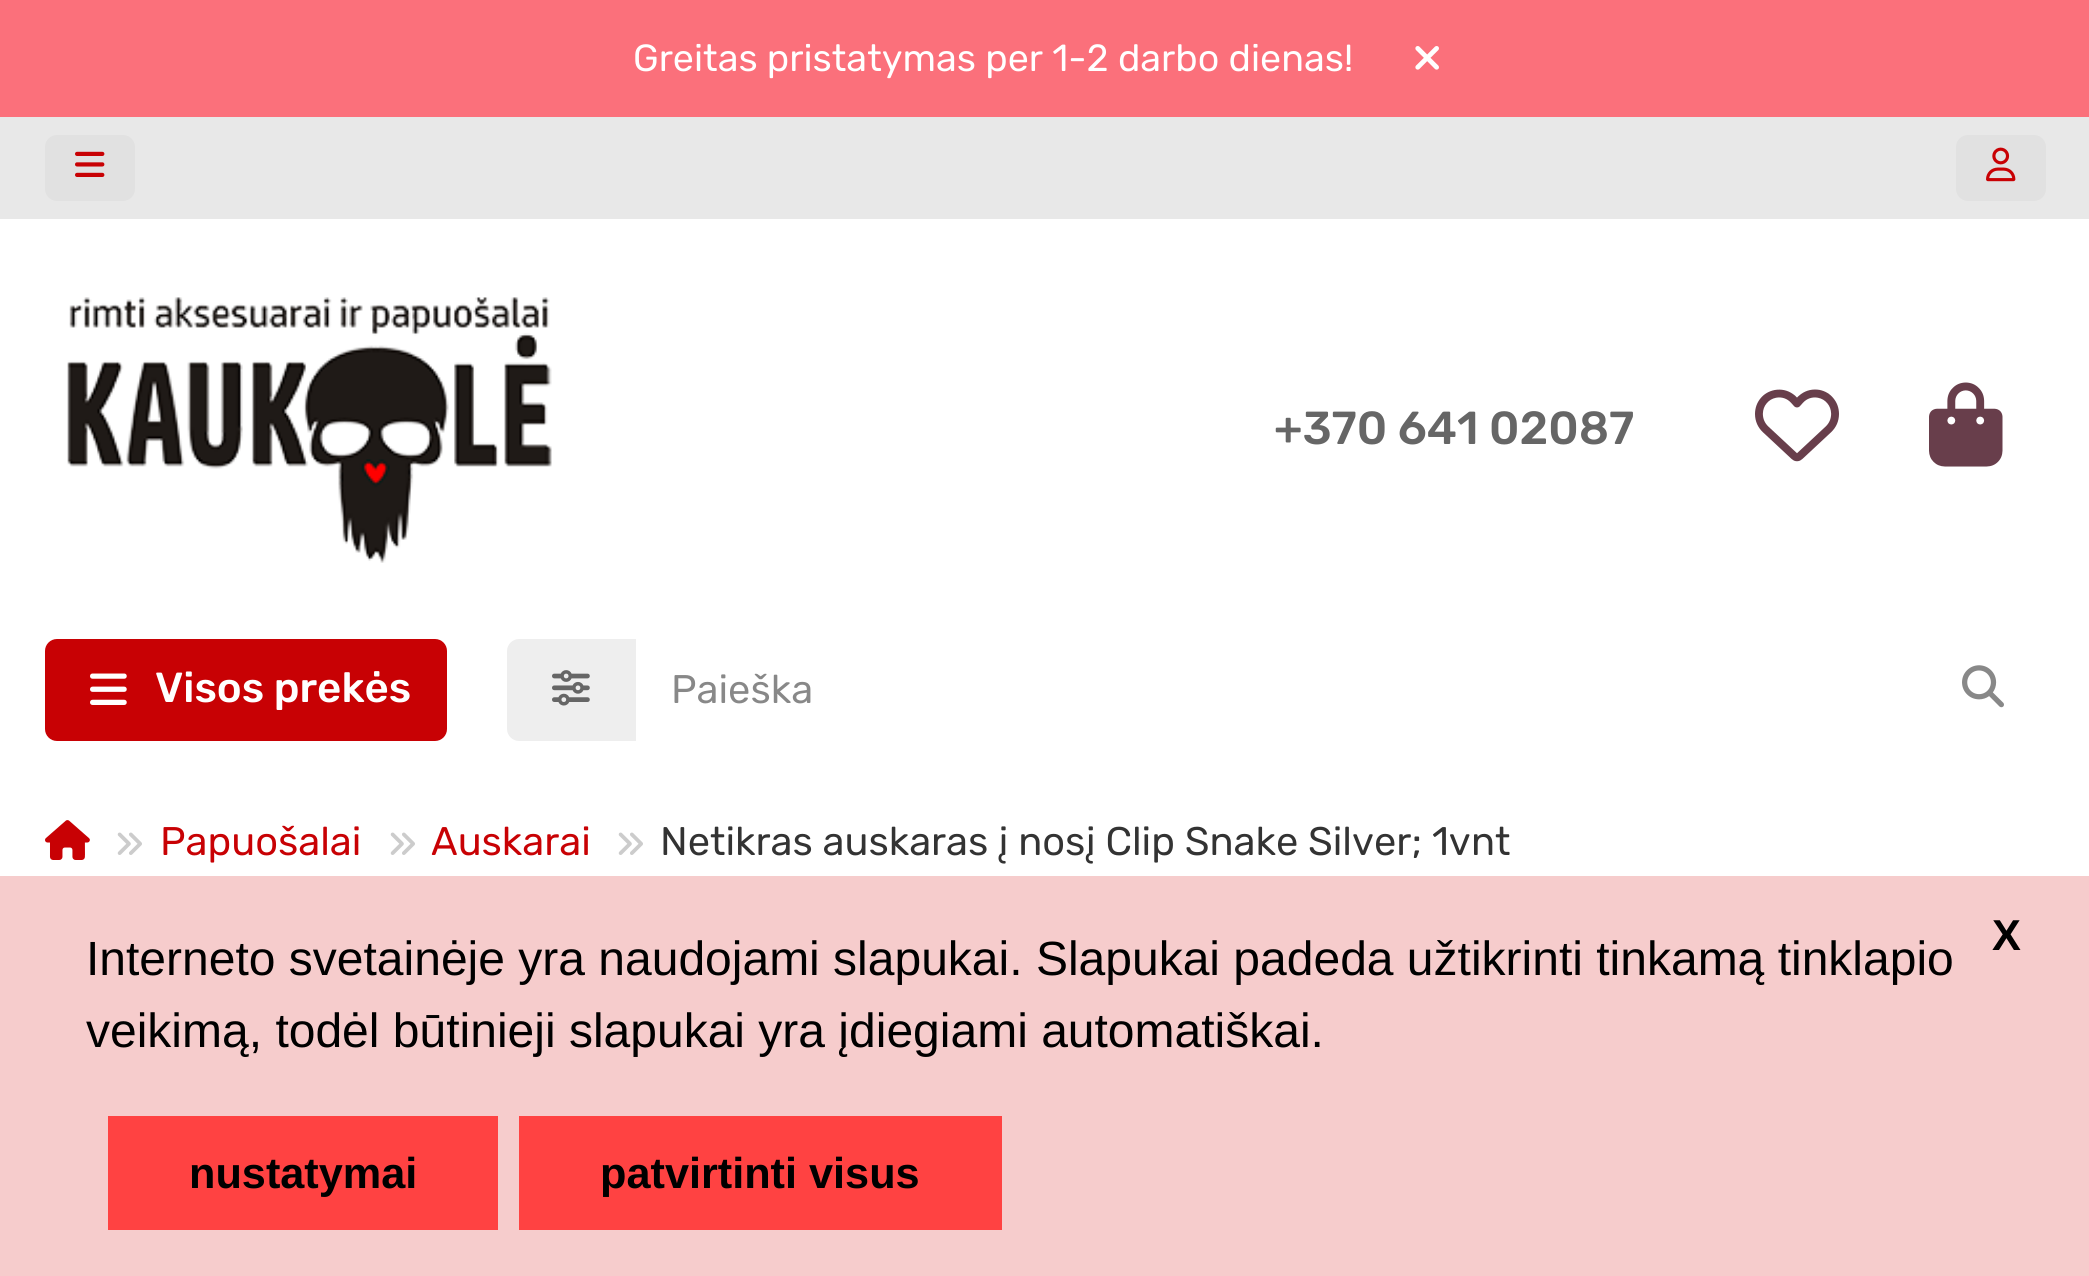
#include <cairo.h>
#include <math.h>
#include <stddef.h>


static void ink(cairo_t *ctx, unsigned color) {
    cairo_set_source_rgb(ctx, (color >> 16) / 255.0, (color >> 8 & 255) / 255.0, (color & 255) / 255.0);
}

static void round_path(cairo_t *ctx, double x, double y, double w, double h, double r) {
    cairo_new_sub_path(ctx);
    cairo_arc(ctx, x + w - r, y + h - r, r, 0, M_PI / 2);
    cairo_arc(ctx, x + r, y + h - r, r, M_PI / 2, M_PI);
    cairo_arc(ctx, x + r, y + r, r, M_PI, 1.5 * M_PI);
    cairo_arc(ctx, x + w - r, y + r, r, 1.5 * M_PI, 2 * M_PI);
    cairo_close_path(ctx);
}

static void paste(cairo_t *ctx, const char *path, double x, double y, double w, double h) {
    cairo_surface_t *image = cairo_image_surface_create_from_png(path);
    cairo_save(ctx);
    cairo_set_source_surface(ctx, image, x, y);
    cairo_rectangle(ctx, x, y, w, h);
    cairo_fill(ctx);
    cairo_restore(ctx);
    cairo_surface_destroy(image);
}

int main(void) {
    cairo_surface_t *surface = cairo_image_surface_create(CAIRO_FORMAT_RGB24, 2089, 1276);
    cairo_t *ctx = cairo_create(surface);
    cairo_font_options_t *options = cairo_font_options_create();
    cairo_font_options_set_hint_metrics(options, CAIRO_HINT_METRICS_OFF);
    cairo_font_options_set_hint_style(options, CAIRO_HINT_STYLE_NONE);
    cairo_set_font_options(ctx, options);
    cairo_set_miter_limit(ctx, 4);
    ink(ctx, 0xFFFFFF);
    cairo_paint(ctx);
    ink(ctx, 0xFB707B);
    cairo_rectangle(ctx, 0, 0, 2089, 117);
    cairo_fill(ctx);
    cairo_select_font_face(ctx, "Rubik", CAIRO_FONT_SLANT_NORMAL, CAIRO_FONT_WEIGHT_NORMAL);
    cairo_set_font_size(ctx, 37.75);
    ink(ctx, 0xFFFFFF);
    cairo_move_to(ctx, 633, 71);
    cairo_show_text(ctx, "Greitas pristatymas per 1-2 darbo dienas!");
    paste(ctx, "media/1.png", 1415, 46, 24, 24);
    ink(ctx, 0xE8E8E8);
    cairo_rectangle(ctx, 0, 117, 2089, 102);
    cairo_fill(ctx);
    ink(ctx, 0xE1E1E1);
    round_path(ctx, 45, 135, 90, 66, 12);
    cairo_fill(ctx);
    paste(ctx, "media/2.png", 75, 151, 30, 26);
    round_path(ctx, 1956, 135, 90, 66, 12);
    cairo_fill(ctx);
    paste(ctx, "media/3.png", 1986, 147, 30, 35);
    paste(ctx, "media/4.png", 67, 297, 485, 266);
    cairo_select_font_face(ctx, "Rubik Medium", CAIRO_FONT_SLANT_NORMAL, CAIRO_FONT_WEIGHT_NORMAL);
    cairo_set_font_size(ctx, 46.25);
    ink(ctx, 0x666666);
    cairo_move_to(ctx, 1274, 444);
    cairo_show_text(ctx, "+370 641 02087");
    paste(ctx, "media/5.png", 1755, 389, 84, 73);
    paste(ctx, "media/6.png", 1929, 382, 74, 85);
    ink(ctx, 0xC80104);
    round_path(ctx, 45, 639, 402, 102, 12);
    cairo_fill(ctx);
    paste(ctx, "media/7.png", 90, 673, 37, 32);
    cairo_set_font_size(ctx, 42);
    ink(ctx, 0xFFFFFF);
    cairo_move_to(ctx, 155, 702);
    cairo_show_text(ctx, "Visos prekės");
    ink(ctx, 0xEEEEEE);
    cairo_new_path(ctx);
    cairo_move_to(ctx, 519, 639);
    cairo_line_to(ctx, 636, 639);
    cairo_line_to(ctx, 636, 741);
    cairo_line_to(ctx, 519, 741);
    cairo_curve_to(ctx, 512.5, 741, 507, 735.5, 507, 729);
    cairo_line_to(ctx, 507, 651);
    cairo_curve_to(ctx, 507, 644.5, 512.5, 639, 519, 639);
    cairo_close_path(ctx);
    cairo_fill(ctx);
    paste(ctx, "media/8.png", 552, 670, 38, 36);
    cairo_select_font_face(ctx, "Rubik", CAIRO_FONT_SLANT_NORMAL, CAIRO_FONT_WEIGHT_NORMAL);
    cairo_set_font_size(ctx, 39.9);
    ink(ctx, 0x888888);
    cairo_move_to(ctx, 671, 703);
    cairo_show_text(ctx, "Paieška");
    paste(ctx, "media/9.png", 1962, 665, 42, 43);
    paste(ctx, "media/10.png", 45, 820, 45, 40);
    paste(ctx, "media/11.png", 117, 832, 25, 23);
    ink(ctx, 0xC80104);
    cairo_move_to(ctx, 160, 855);
    cairo_show_text(ctx, "Papuošalai");
    paste(ctx, "media/11.png", 390, 832, 25, 23);
    cairo_move_to(ctx, 431, 855);
    cairo_show_text(ctx, "Auskarai");
    paste(ctx, "media/11.png", 618, 832, 25, 23);
    ink(ctx, 0x333333);
    cairo_move_to(ctx, 660, 855);
    cairo_show_text(ctx, "Netikras auskaras į nosį Clip Snake Silver; 1vnt");
    ink(ctx, 0xF6CCCC);
    cairo_rectangle(ctx, 0, 876, 2089, 400);
    cairo_fill(ctx);
    cairo_select_font_face(ctx, "Liberation Sans", CAIRO_FONT_SLANT_NORMAL, CAIRO_FONT_WEIGHT_BOLD);
    cairo_set_font_size(ctx, 43.25);
    ink(ctx, 0x000000);
    cairo_move_to(ctx, 1992, 950);
    cairo_show_text(ctx, "X");
    ink(ctx, 0xFF4242);
    cairo_rectangle(ctx, 108, 1116, 390, 114);
    cairo_fill(ctx);
    ink(ctx, 0x000000);
    cairo_move_to(ctx, 189, 1188);
    cairo_show_text(ctx, "nustatymai");
    ink(ctx, 0xFF4242);
    cairo_rectangle(ctx, 519, 1116, 483, 114);
    cairo_fill(ctx);
    ink(ctx, 0x000000);
    cairo_move_to(ctx, 600, 1188);
    cairo_show_text(ctx, "patvirtinti visus");
    cairo_select_font_face(ctx, "Liberation Sans", CAIRO_FONT_SLANT_NORMAL, CAIRO_FONT_WEIGHT_NORMAL);
    cairo_set_font_size(ctx, 48);
    cairo_move_to(ctx, 86, 975);
    cairo_show_text(ctx, "Interneto svetainėje yra naudojami slapukai. Slapukai padeda užtikrinti tinkamą tinklapio");
    cairo_move_to(ctx, 86, 1047);
    cairo_show_text(ctx, "veikimą, todėl būtinieji slapukai yra įdiegiami automatiškai.");
    cairo_surface_write_to_png(surface, "image.png");
    cairo_font_options_destroy(options);
    cairo_destroy(ctx);
    cairo_surface_destroy(surface);
    return 0;
}
